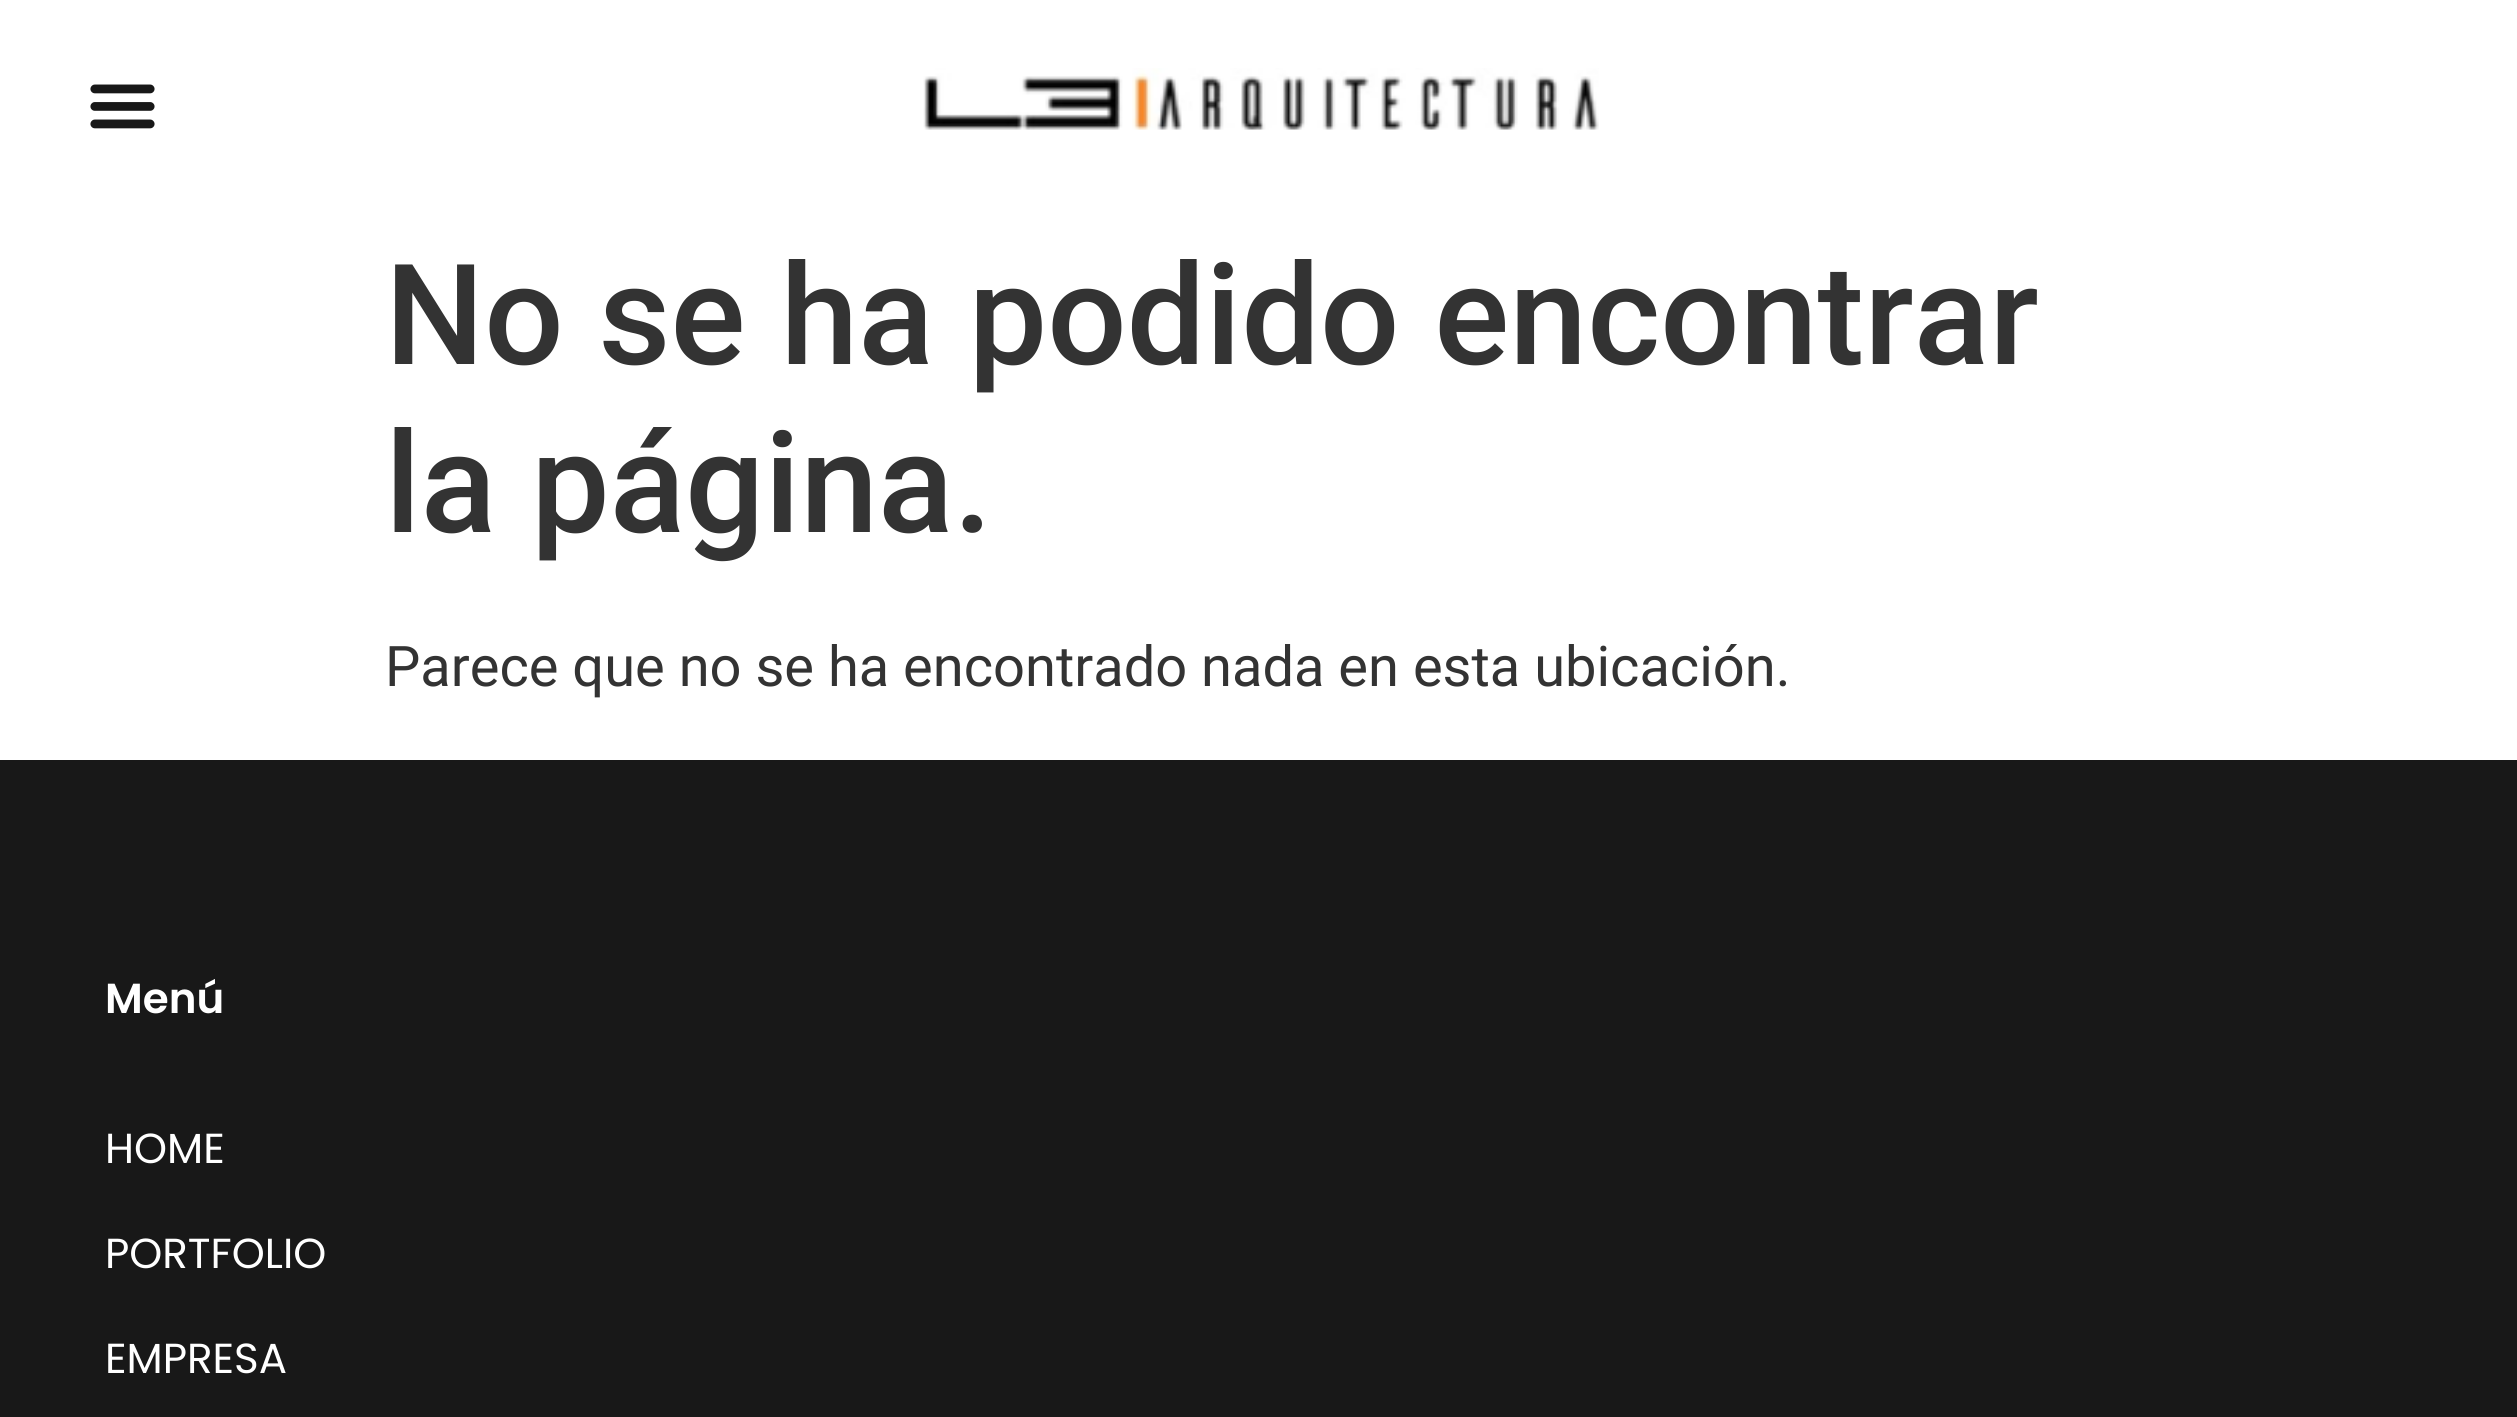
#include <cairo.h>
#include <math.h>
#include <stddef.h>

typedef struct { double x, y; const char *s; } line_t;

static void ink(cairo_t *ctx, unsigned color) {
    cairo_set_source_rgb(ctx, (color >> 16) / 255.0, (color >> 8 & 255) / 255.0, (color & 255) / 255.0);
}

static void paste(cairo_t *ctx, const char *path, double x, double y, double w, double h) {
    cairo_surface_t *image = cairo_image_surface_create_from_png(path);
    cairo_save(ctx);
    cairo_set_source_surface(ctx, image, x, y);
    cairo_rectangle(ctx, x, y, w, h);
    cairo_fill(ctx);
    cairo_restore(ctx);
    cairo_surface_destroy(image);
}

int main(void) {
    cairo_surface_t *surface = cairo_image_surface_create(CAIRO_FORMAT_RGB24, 2517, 1417);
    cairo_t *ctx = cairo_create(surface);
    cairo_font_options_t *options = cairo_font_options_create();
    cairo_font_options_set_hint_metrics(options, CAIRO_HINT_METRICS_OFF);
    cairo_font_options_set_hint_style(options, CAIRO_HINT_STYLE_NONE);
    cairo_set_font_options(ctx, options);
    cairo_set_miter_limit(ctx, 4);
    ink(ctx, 0xFFFFFF);
    cairo_paint(ctx);
    paste(ctx, "media/1.png", 90, 84, 65, 45);
    paste(ctx, "media/2.png", 923, 68, 676, 62);
    cairo_select_font_face(ctx, "Roboto Medium", CAIRO_FONT_SLANT_NORMAL, CAIRO_FONT_WEIGHT_NORMAL);
    cairo_set_font_size(ctx, 140);
    ink(ctx, 0x333333);
    cairo_move_to(ctx, 385, 364);
    cairo_show_text(ctx, "No se ha podido encontrar");
    cairo_move_to(ctx, 385, 532);
    cairo_show_text(ctx, "la página.");
    cairo_select_font_face(ctx, "Roboto", CAIRO_FONT_SLANT_NORMAL, CAIRO_FONT_WEIGHT_NORMAL);
    cairo_set_font_size(ctx, 56);
    cairo_move_to(ctx, 385, 686);
    cairo_show_text(ctx, "Parece que no se ha encontrado nada en esta ubicación.");
    ink(ctx, 0x181818);
    cairo_rectangle(ctx, 0, 760, 2517, 657);
    cairo_fill(ctx);
    cairo_select_font_face(ctx, "Poppins SemiBold", CAIRO_FONT_SLANT_NORMAL, CAIRO_FONT_WEIGHT_NORMAL);
    cairo_set_font_size(ctx, 42);
    ink(ctx, 0xFFFFFF);
    cairo_move_to(ctx, 105, 1013);
    cairo_show_text(ctx, "Menú");
    cairo_select_font_face(ctx, "Poppins", CAIRO_FONT_SLANT_NORMAL, CAIRO_FONT_WEIGHT_NORMAL);
    {
        static const line_t items[] = {
            {105, 1163, "HOME"},
            {105, 1268, "PORTFOLIO"},
            {105, 1373, "EMPRESA"},
        };
        for (size_t i = 0; i < sizeof items / sizeof *items; i++) {
            cairo_move_to(ctx, items[i].x, items[i].y);
            cairo_show_text(ctx, items[i].s);
        }
    }
    cairo_surface_write_to_png(surface, "image.png");
    cairo_font_options_destroy(options);
    cairo_destroy(ctx);
    cairo_surface_destroy(surface);
    return 0;
}
